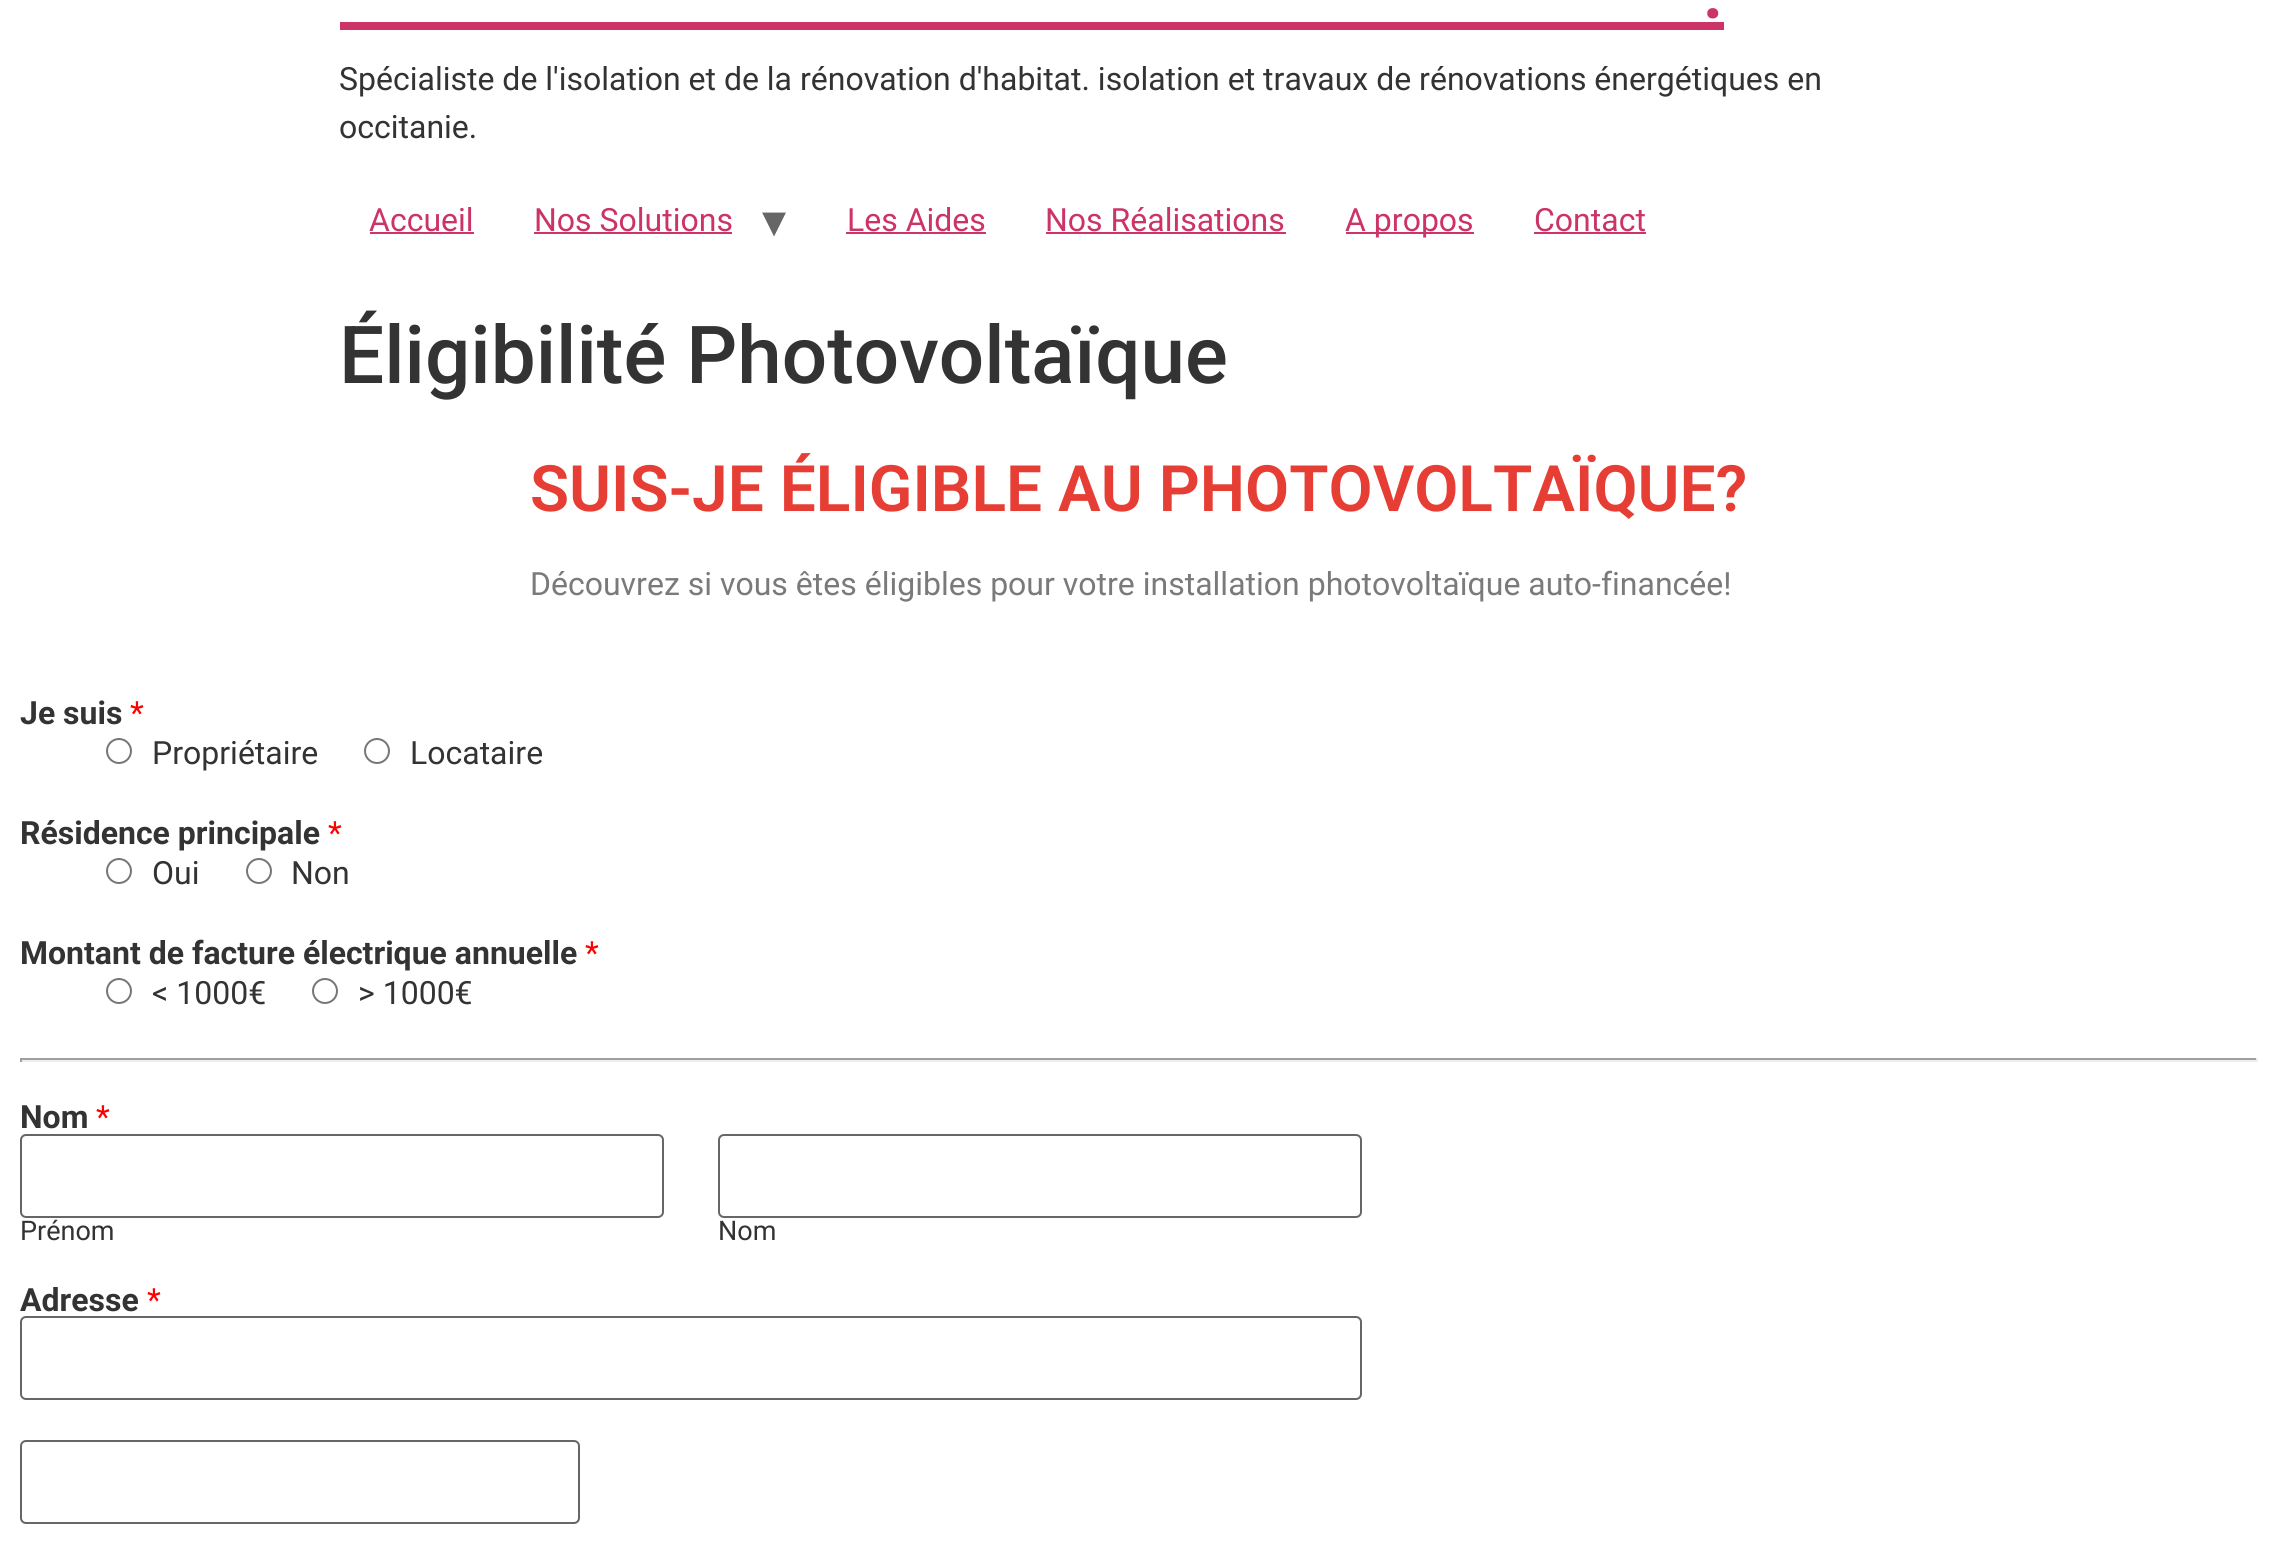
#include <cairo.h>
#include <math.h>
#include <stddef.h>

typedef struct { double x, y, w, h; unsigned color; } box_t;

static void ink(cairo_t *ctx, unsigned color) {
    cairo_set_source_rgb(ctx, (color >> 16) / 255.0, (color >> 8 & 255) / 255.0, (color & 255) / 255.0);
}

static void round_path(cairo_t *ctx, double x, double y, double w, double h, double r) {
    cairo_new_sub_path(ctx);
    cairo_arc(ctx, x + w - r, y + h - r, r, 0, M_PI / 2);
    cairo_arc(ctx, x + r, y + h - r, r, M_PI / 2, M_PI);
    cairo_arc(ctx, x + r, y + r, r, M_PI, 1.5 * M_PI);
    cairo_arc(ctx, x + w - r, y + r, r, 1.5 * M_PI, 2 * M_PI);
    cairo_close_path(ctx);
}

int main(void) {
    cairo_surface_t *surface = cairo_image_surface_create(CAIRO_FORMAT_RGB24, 2278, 1553);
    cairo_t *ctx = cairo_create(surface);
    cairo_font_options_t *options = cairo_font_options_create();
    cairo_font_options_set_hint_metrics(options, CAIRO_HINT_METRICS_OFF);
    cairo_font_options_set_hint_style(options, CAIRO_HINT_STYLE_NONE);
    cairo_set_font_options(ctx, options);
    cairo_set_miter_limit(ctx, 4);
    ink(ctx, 0xFFFFFF);
    cairo_paint(ctx);
    cairo_select_font_face(ctx, "Roboto Medium", CAIRO_FONT_SLANT_NORMAL, CAIRO_FONT_WEIGHT_NORMAL);
    cairo_set_font_size(ctx, 80);
    ink(ctx, 0xCC3366);
    cairo_move_to(ctx, 1702, 18);
    cairo_show_text(ctx, ".");
    cairo_rectangle(ctx, 340, 22, 1384, 8);
    cairo_fill(ctx);
    cairo_select_font_face(ctx, "Roboto", CAIRO_FONT_SLANT_NORMAL, CAIRO_FONT_WEIGHT_NORMAL);
    cairo_set_font_size(ctx, 32);
    ink(ctx, 0x333333);
    cairo_move_to(ctx, 339, 90);
    cairo_show_text(ctx, "Spécialiste de l'isolation et de la rénovation d'habitat. isolation et travaux de rénovations énergétiques en");
    cairo_move_to(ctx, 339, 138);
    cairo_show_text(ctx, "occitanie.");
    ink(ctx, 0xCC3366);
    cairo_move_to(ctx, 369, 231);
    cairo_show_text(ctx, "Accueil");
    cairo_rectangle(ctx, 370, 232, 104, 2);
    cairo_fill(ctx);
    cairo_move_to(ctx, 534, 231);
    cairo_show_text(ctx, "Nos Solutions");
    cairo_rectangle(ctx, 534, 232, 198, 2);
    cairo_fill(ctx);
    cairo_select_font_face(ctx, "DejaVu Sans", CAIRO_FONT_SLANT_NORMAL, CAIRO_FONT_WEIGHT_NORMAL);
    cairo_set_font_size(ctx, 48);
    ink(ctx, 0x666666);
    cairo_move_to(ctx, 762, 237);
    cairo_show_text(ctx, "▾");
    cairo_select_font_face(ctx, "Roboto", CAIRO_FONT_SLANT_NORMAL, CAIRO_FONT_WEIGHT_NORMAL);
    cairo_set_font_size(ctx, 32);
    ink(ctx, 0xCC3366);
    cairo_move_to(ctx, 847, 231);
    cairo_show_text(ctx, "Les Aides");
    cairo_rectangle(ctx, 846, 232, 140, 2);
    cairo_fill(ctx);
    cairo_move_to(ctx, 1045, 231);
    cairo_show_text(ctx, "Nos Réalisations");
    cairo_rectangle(ctx, 1046, 232, 240, 2);
    cairo_fill(ctx);
    cairo_rectangle(ctx, 1346, 232, 128, 2);
    cairo_fill(ctx);
    cairo_move_to(ctx, 1345, 231);
    cairo_show_text(ctx, "A propos");
    cairo_move_to(ctx, 1534, 231);
    cairo_show_text(ctx, "Contact");
    cairo_rectangle(ctx, 1534, 232, 112, 2);
    cairo_fill(ctx);
    cairo_select_font_face(ctx, "Roboto Medium", CAIRO_FONT_SLANT_NORMAL, CAIRO_FONT_WEIGHT_NORMAL);
    cairo_set_font_size(ctx, 80);
    ink(ctx, 0x333333);
    cairo_move_to(ctx, 339, 383);
    cairo_show_text(ctx, "Éligibilité Photovoltaïque");
    cairo_select_font_face(ctx, "Roboto SemiBold", CAIRO_FONT_SLANT_NORMAL, CAIRO_FONT_WEIGHT_NORMAL);
    cairo_set_font_size(ctx, 64);
    ink(ctx, 0xE63E34);
    cairo_move_to(ctx, 530, 511);
    cairo_show_text(ctx, "SUIS-JE ÉLIGIBLE AU PHOTOVOLTAÏQUE?");
    cairo_select_font_face(ctx, "Roboto", CAIRO_FONT_SLANT_NORMAL, CAIRO_FONT_WEIGHT_NORMAL);
    cairo_set_font_size(ctx, 32);
    ink(ctx, 0x7A7A7A);
    cairo_move_to(ctx, 530, 595);
    cairo_show_text(ctx, "Découvrez si vous êtes éligibles pour votre installation photovoltaïque auto-financée!");
    cairo_select_font_face(ctx, "Roboto", CAIRO_FONT_SLANT_NORMAL, CAIRO_FONT_WEIGHT_BOLD);
    ink(ctx, 0x333333);
    cairo_move_to(ctx, 20, 724);
    cairo_show_text(ctx, "Je suis");
    cairo_select_font_face(ctx, "Roboto", CAIRO_FONT_SLANT_NORMAL, CAIRO_FONT_WEIGHT_NORMAL);
    ink(ctx, 0xFF0000);
    cairo_move_to(ctx, 130, 724);
    cairo_show_text(ctx, "*");
    cairo_new_path(ctx);
    cairo_arc(ctx, 119, 751, 12, 0, 2 * M_PI);
    ink(ctx, 0x767676);
    cairo_stroke(ctx);
    ink(ctx, 0x333333);
    cairo_move_to(ctx, 152, 764);
    cairo_show_text(ctx, "Propriétaire");
    cairo_new_path(ctx);
    cairo_arc(ctx, 377, 751, 12, 0, 2 * M_PI);
    ink(ctx, 0x767676);
    cairo_stroke(ctx);
    ink(ctx, 0x333333);
    cairo_move_to(ctx, 410, 764);
    cairo_show_text(ctx, "Locataire");
    cairo_select_font_face(ctx, "Roboto", CAIRO_FONT_SLANT_NORMAL, CAIRO_FONT_WEIGHT_BOLD);
    cairo_move_to(ctx, 20, 844);
    cairo_show_text(ctx, "Résidence principale");
    cairo_select_font_face(ctx, "Roboto", CAIRO_FONT_SLANT_NORMAL, CAIRO_FONT_WEIGHT_NORMAL);
    ink(ctx, 0xFF0000);
    cairo_move_to(ctx, 328, 844);
    cairo_show_text(ctx, "*");
    cairo_new_path(ctx);
    cairo_arc(ctx, 119, 871, 12, 0, 2 * M_PI);
    ink(ctx, 0x767676);
    cairo_stroke(ctx);
    ink(ctx, 0x333333);
    cairo_move_to(ctx, 152, 884);
    cairo_show_text(ctx, "Oui");
    cairo_new_path(ctx);
    cairo_arc(ctx, 259, 871, 12, 0, 2 * M_PI);
    ink(ctx, 0x767676);
    cairo_stroke(ctx);
    ink(ctx, 0x333333);
    cairo_move_to(ctx, 291, 884);
    cairo_show_text(ctx, "Non");
    cairo_select_font_face(ctx, "Roboto", CAIRO_FONT_SLANT_NORMAL, CAIRO_FONT_WEIGHT_BOLD);
    cairo_move_to(ctx, 20, 964);
    cairo_show_text(ctx, "Montant de facture électrique annuelle");
    cairo_select_font_face(ctx, "Roboto", CAIRO_FONT_SLANT_NORMAL, CAIRO_FONT_WEIGHT_NORMAL);
    ink(ctx, 0xFF0000);
    cairo_move_to(ctx, 585, 964);
    cairo_show_text(ctx, "*");
    cairo_new_path(ctx);
    cairo_arc(ctx, 119, 991, 12, 0, 2 * M_PI);
    ink(ctx, 0x767676);
    cairo_stroke(ctx);
    ink(ctx, 0x333333);
    cairo_move_to(ctx, 152, 1004);
    cairo_show_text(ctx, "< 1000€");
    cairo_new_path(ctx);
    cairo_arc(ctx, 325, 991, 12, 0, 2 * M_PI);
    ink(ctx, 0x767676);
    cairo_stroke(ctx);
    ink(ctx, 0x333333);
    cairo_move_to(ctx, 358, 1004);
    cairo_show_text(ctx, "> 1000€");
    {
        static const box_t items[] = {
            {20, 1058, 2238, 2, 0x9F9F9F},
            {2256, 1058, 2, 4, 0xEEEEEE},
            {20, 1060, 2238, 2, 0xEEEEEE},
            {20, 1058, 2, 4, 0x9F9F9F},
        };
        for (size_t i = 0; i < sizeof items / sizeof *items; i++) {
            ink(ctx, items[i].color);
            cairo_rectangle(ctx, items[i].x, items[i].y, items[i].w, items[i].h);
            cairo_fill(ctx);
        }
    }
    cairo_select_font_face(ctx, "Roboto", CAIRO_FONT_SLANT_NORMAL, CAIRO_FONT_WEIGHT_BOLD);
    ink(ctx, 0x333333);
    cairo_move_to(ctx, 20, 1128);
    cairo_show_text(ctx, "Nom");
    cairo_select_font_face(ctx, "Roboto", CAIRO_FONT_SLANT_NORMAL, CAIRO_FONT_WEIGHT_NORMAL);
    ink(ctx, 0xFF0000);
    cairo_move_to(ctx, 96, 1128);
    cairo_show_text(ctx, "*");
    round_path(ctx, 21, 1135, 642, 82, 5);
    ink(ctx, 0x666666);
    cairo_stroke(ctx);
    cairo_set_font_size(ctx, 27);
    ink(ctx, 0x333333);
    cairo_move_to(ctx, 20, 1240);
    cairo_show_text(ctx, "Prénom");
    round_path(ctx, 719, 1135, 642, 82, 5);
    ink(ctx, 0x666666);
    cairo_stroke(ctx);
    ink(ctx, 0x333333);
    cairo_move_to(ctx, 718, 1240);
    cairo_show_text(ctx, "Nom");
    cairo_select_font_face(ctx, "Roboto", CAIRO_FONT_SLANT_NORMAL, CAIRO_FONT_WEIGHT_BOLD);
    cairo_set_font_size(ctx, 32);
    cairo_move_to(ctx, 20, 1311);
    cairo_show_text(ctx, "Adresse");
    cairo_select_font_face(ctx, "Roboto", CAIRO_FONT_SLANT_NORMAL, CAIRO_FONT_WEIGHT_NORMAL);
    ink(ctx, 0xFF0000);
    cairo_move_to(ctx, 147, 1311);
    cairo_show_text(ctx, "*");
    round_path(ctx, 21, 1317, 1340, 82, 5);
    ink(ctx, 0x666666);
    cairo_stroke(ctx);
    round_path(ctx, 21, 1441, 558, 82, 5);
    cairo_stroke(ctx);
    cairo_surface_write_to_png(surface, "image.png");
    cairo_font_options_destroy(options);
    cairo_destroy(ctx);
    cairo_surface_destroy(surface);
    return 0;
}
